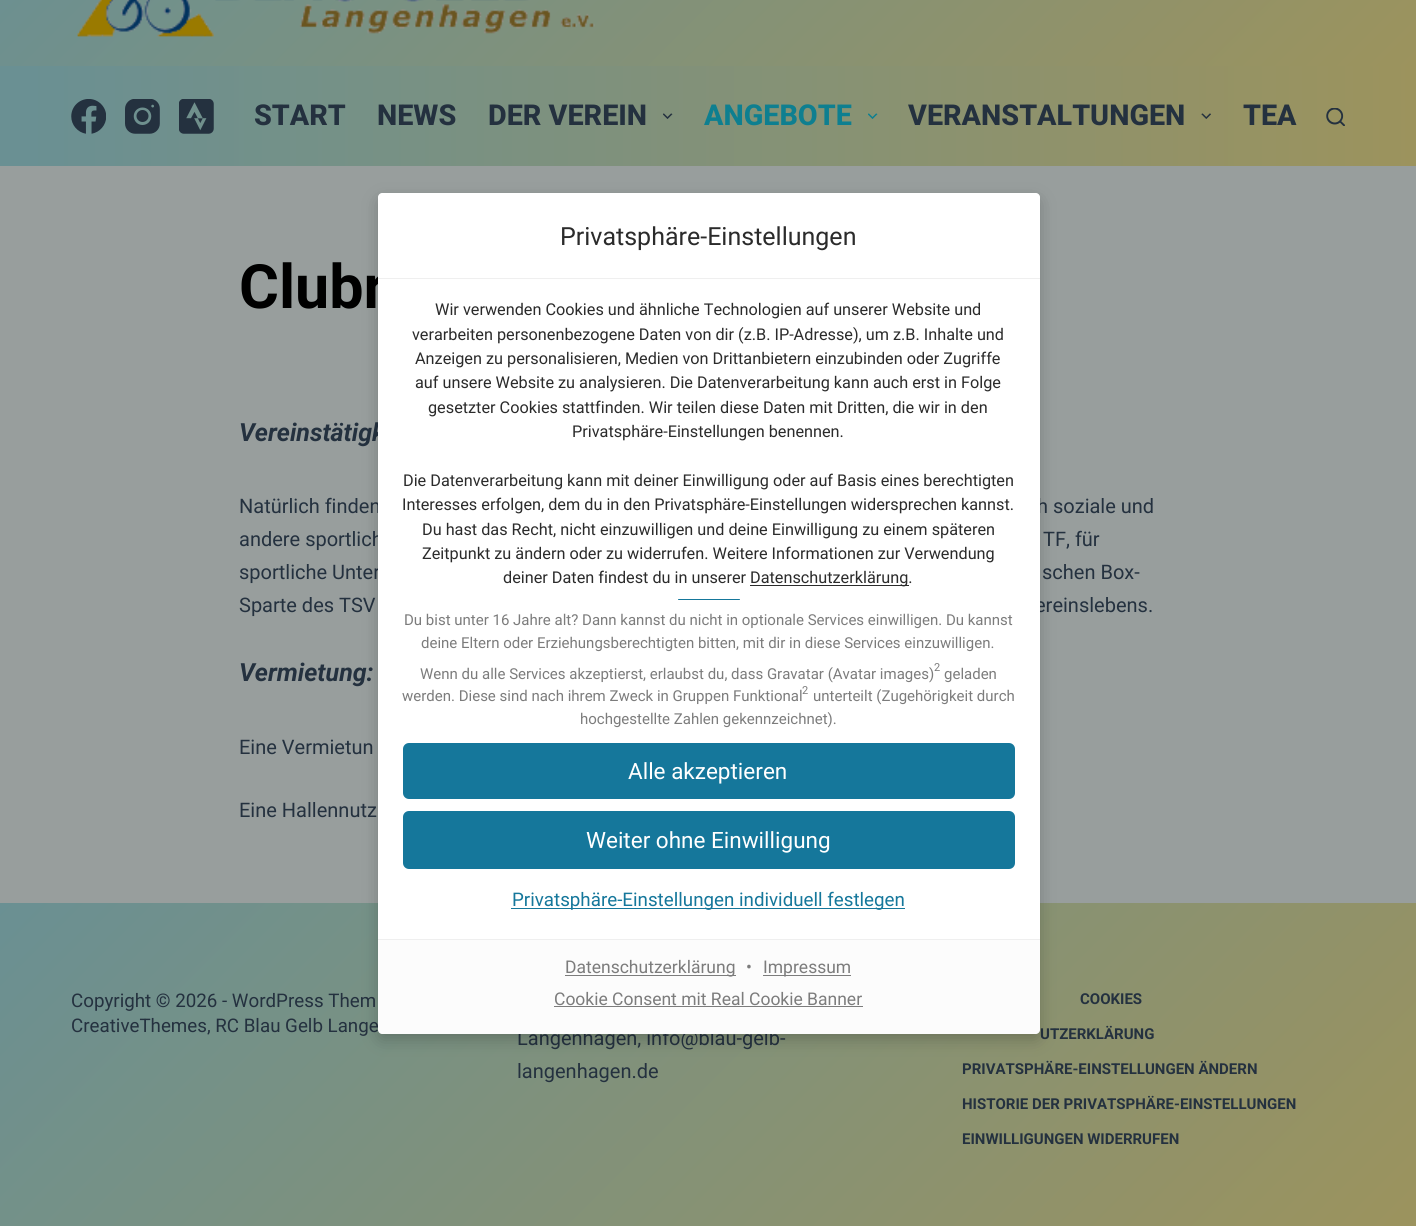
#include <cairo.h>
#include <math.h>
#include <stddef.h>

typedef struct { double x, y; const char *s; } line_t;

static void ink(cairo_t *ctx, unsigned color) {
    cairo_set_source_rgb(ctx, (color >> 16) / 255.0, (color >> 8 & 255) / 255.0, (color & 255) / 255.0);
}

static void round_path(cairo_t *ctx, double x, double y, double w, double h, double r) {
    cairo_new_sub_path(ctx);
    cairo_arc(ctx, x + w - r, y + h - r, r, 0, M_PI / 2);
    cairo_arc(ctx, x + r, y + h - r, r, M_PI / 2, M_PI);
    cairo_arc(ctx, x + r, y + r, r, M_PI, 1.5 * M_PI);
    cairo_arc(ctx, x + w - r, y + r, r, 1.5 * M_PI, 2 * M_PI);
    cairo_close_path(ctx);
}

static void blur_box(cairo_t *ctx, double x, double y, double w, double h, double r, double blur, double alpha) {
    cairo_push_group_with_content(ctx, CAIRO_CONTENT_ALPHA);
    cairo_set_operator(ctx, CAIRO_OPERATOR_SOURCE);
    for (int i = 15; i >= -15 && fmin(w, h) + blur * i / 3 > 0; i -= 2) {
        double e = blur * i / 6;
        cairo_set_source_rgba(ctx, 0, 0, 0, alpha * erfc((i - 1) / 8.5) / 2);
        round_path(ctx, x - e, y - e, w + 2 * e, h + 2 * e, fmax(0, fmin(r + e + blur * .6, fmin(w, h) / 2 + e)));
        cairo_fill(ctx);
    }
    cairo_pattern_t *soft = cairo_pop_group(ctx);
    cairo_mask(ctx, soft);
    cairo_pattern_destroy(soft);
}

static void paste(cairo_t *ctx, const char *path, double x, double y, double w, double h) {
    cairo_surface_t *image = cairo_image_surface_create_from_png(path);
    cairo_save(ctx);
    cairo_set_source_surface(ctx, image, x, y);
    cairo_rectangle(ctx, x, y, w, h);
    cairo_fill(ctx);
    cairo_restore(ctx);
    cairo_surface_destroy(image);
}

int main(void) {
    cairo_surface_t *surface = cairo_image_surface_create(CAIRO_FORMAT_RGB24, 1416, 1226);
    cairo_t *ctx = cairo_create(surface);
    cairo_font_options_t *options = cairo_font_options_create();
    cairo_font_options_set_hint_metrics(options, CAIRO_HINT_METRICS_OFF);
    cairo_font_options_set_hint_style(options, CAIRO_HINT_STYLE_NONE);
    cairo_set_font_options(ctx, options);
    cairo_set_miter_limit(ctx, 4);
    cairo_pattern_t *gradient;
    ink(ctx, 0x989E9D);
    cairo_paint(ctx);
    gradient = cairo_pattern_create_linear(317, -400, 1100, 383);
    cairo_pattern_add_color_stop_rgba(gradient, 0, 0.416, 0.565, 0.576, 1);
    cairo_pattern_add_color_stop_rgba(gradient, 1, 0.612, 0.576, 0.365, 1);
    cairo_set_source(ctx, gradient);
    cairo_pattern_destroy(gradient);
    cairo_rectangle(ctx, 0, 0, 1416, 66);
    cairo_fill(ctx);
    paste(ctx, "media/1.png", 77, 0, 518, 37);
    gradient = cairo_pattern_create_linear(0, 116, 1416, 116);
    cairo_pattern_add_color_stop_rgba(gradient, 0.02, 0.416, 0.565, 0.576, 1);
    cairo_pattern_add_color_stop_rgba(gradient, 1, 0.612, 0.576, 0.365, 1);
    cairo_set_source(ctx, gradient);
    cairo_pattern_destroy(gradient);
    cairo_rectangle(ctx, 0, 66, 1416, 100);
    cairo_fill(ctx);
    paste(ctx, "media/2.png", 71, 99, 35, 35);
    paste(ctx, "media/3.png", 125, 99, 35, 35);
    paste(ctx, "media/4.png", 179, 99, 35, 35);
    cairo_select_font_face(ctx, "Roboto ExtraBold", CAIRO_FONT_SLANT_NORMAL, CAIRO_FONT_WEIGHT_NORMAL);
    cairo_set_font_size(ctx, 28.75);
    ink(ctx, 0x24313F);
    {
        static const line_t items[] = {
            {254, 125, "START"},
            {377, 125, "NEWS"},
            {488, 125, "DER VEREIN"},
        };
        for (size_t i = 0; i < sizeof items / sizeof *items; i++) {
            cairo_move_to(ctx, items[i].x, items[i].y);
            cairo_show_text(ctx, items[i].s);
        }
    }
    paste(ctx, "media/5.png", 663, 113, 10, 6);
    ink(ctx, 0x0E7F90);
    cairo_move_to(ctx, 704, 125);
    cairo_show_text(ctx, "ANGEBOTE");
    paste(ctx, "media/6.png", 868, 113, 10, 6);
    ink(ctx, 0x24313F);
    cairo_move_to(ctx, 908, 125);
    cairo_show_text(ctx, "VERANSTALTUNGEN");
    paste(ctx, "media/7.png", 1201, 113, 10, 6);
    cairo_move_to(ctx, 1243, 125);
    cairo_show_text(ctx, "TEA");
    paste(ctx, "media/8.png", 1326, 108, 19, 18);
    cairo_select_font_face(ctx, "Roboto", CAIRO_FONT_SLANT_NORMAL, CAIRO_FONT_WEIGHT_BOLD);
    cairo_set_font_size(ctx, 61);
    ink(ctx, 0x000000);
    cairo_move_to(ctx, 239, 308);
    cairo_show_text(ctx, "Clubr");
    cairo_select_font_face(ctx, "Roboto", CAIRO_FONT_SLANT_ITALIC, CAIRO_FONT_WEIGHT_BOLD);
    cairo_set_font_size(ctx, 25);
    ink(ctx, 0x24313F);
    cairo_move_to(ctx, 239, 441);
    cairo_show_text(ctx, "Vereinstätigk");
    cairo_select_font_face(ctx, "Roboto", CAIRO_FONT_SLANT_NORMAL, CAIRO_FONT_WEIGHT_NORMAL);
    cairo_set_font_size(ctx, 20);
    {
        static const line_t items[] = {
            {239, 513, "Natürlich finden"},
            {1037, 513, "h soziale und"},
            {239, 546, "andere sportlich"},
            {1043, 546, "TF, für"},
            {239, 579, "sportliche Unter"},
            {1042, 579, "schen Box-"},
            {239, 612, "Sparte des TSV"},
            {1035, 612, "ereinslebens."},
        };
        for (size_t i = 0; i < sizeof items / sizeof *items; i++) {
            cairo_move_to(ctx, items[i].x, items[i].y);
            cairo_show_text(ctx, items[i].s);
        }
    }
    cairo_select_font_face(ctx, "Roboto", CAIRO_FONT_SLANT_ITALIC, CAIRO_FONT_WEIGHT_BOLD);
    cairo_set_font_size(ctx, 25);
    cairo_move_to(ctx, 239, 681);
    cairo_show_text(ctx, "Vermietung:");
    cairo_select_font_face(ctx, "Roboto", CAIRO_FONT_SLANT_NORMAL, CAIRO_FONT_WEIGHT_NORMAL);
    cairo_set_font_size(ctx, 20);
    cairo_move_to(ctx, 239, 754);
    cairo_show_text(ctx, "Eine Vermietun");
    cairo_move_to(ctx, 239, 817);
    cairo_show_text(ctx, "Eine Hallennutz");
    gradient = cairo_pattern_create_linear(270, 632, 1146, 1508);
    cairo_pattern_add_color_stop_rgba(gradient, 0, 0.416, 0.565, 0.576, 1);
    cairo_pattern_add_color_stop_rgba(gradient, 1, 0.612, 0.576, 0.365, 1);
    cairo_set_source(ctx, gradient);
    cairo_pattern_destroy(gradient);
    cairo_rectangle(ctx, 0, 903, 1416, 323);
    cairo_fill(ctx);
    cairo_set_font_size(ctx, 18.75);
    ink(ctx, 0x24313F);
    cairo_move_to(ctx, 71, 1007);
    cairo_show_text(ctx, "Copyright © 2026 - WordPress Them");
    cairo_move_to(ctx, 71, 1032);
    cairo_show_text(ctx, "CreativeThemes, RC Blau Gelb Lange");
    cairo_set_font_size(ctx, 20);
    cairo_move_to(ctx, 517, 1045);
    cairo_show_text(ctx, "Langenhagen, info@blau-gelb-");
    cairo_move_to(ctx, 517, 1078);
    cairo_show_text(ctx, "langenhagen.de");
    cairo_select_font_face(ctx, "Roboto", CAIRO_FONT_SLANT_NORMAL, CAIRO_FONT_WEIGHT_BOLD);
    cairo_set_font_size(ctx, 15);
    {
        static const line_t items[] = {
            {1080, 1004, "COOKIES"},
            {1040, 1039, "UTZERKLÄRUNG"},
            {962, 1074, "PRIVATSPHÄRE-EINSTELLUNGEN ÄNDERN"},
            {962, 1109, "HISTORIE DER PRIVATSPHÄRE-EINSTELLUNGEN"},
            {962, 1144, "EINWILLIGUNGEN WIDERRUFEN"},
        };
        for (size_t i = 0; i < sizeof items / sizeof *items; i++) {
            cairo_move_to(ctx, items[i].x, items[i].y);
            cairo_show_text(ctx, items[i].s);
        }
    }
    ink(ctx, 0x000000);
    blur_box(ctx, 378, 199, 662, 841, 4, 8, 0.2);
    ink(ctx, 0xFFFFFF);
    cairo_new_path(ctx);
    cairo_move_to(ctx, 382, 193);
    cairo_line_to(ctx, 1036, 193);
    cairo_curve_to(ctx, 1038, 193, 1040, 195, 1040, 197);
    cairo_line_to(ctx, 1040, 279);
    cairo_line_to(ctx, 378, 279);
    cairo_line_to(ctx, 378, 197);
    cairo_curve_to(ctx, 378, 195, 380, 193, 382, 193);
    cairo_close_path(ctx);
    cairo_fill(ctx);
    cairo_select_font_face(ctx, "Roboto", CAIRO_FONT_SLANT_NORMAL, CAIRO_FONT_WEIGHT_NORMAL);
    cairo_set_font_size(ctx, 25);
    ink(ctx, 0x2B2B2B);
    cairo_move_to(ctx, 560, 245);
    cairo_show_text(ctx, "Privatsphäre-Einstellungen");
    ink(ctx, 0xEFEFEF);
    cairo_rectangle(ctx, 378, 278, 662, 1);
    cairo_fill(ctx);
    ink(ctx, 0xFFFFFF);
    cairo_rectangle(ctx, 378, 279, 662, 660);
    cairo_fill(ctx);
    cairo_set_font_size(ctx, 16.25);
    ink(ctx, 0x2B2B2B);
    {
        static const line_t items[] = {
            {435, 315, "Wir verwenden Cookies und ähnliche Technologien auf unserer Website und"},
            {412, 340, "verarbeiten personenbezogene Daten von dir (z.B. IP-Adresse), um z.B. Inhalte und"},
            {415, 364, "Anzeigen zu personalisieren, Medien von Drittanbietern einzubinden oder Zugriffe"},
            {415, 388, "auf unsere Website zu analysieren. Die Datenverarbeitung kann auch erst in Folge"},
            {428, 413, "gesetzter Cookies stattfinden. Wir teilen diese Daten mit Dritten, die wir in den"},
            {572, 437, "Privatsphäre-Einstellungen benennen."},
            {403, 486, "Die Datenverarbeitung kann mit deiner Einwilligung oder auf Basis eines berechtigten"},
            {402, 510, "Interesses erfolgen, dem du in den Privatsphäre-Einstellungen widersprechen kannst."},
            {422, 535, "Du hast das Recht, nicht einzuwilligen und deine Einwilligung zu einem späteren"},
            {422, 559, "Zeitpunkt zu ändern oder zu widerrufen. Weitere Informationen zur Verwendung"},
            {503, 583, "deiner Daten findest du in unserer"},
        };
        for (size_t i = 0; i < sizeof items / sizeof *items; i++) {
            cairo_move_to(ctx, items[i].x, items[i].y);
            cairo_show_text(ctx, items[i].s);
        }
    }
    cairo_rectangle(ctx, 750, 585, 159, 1);
    cairo_fill(ctx);
    cairo_move_to(ctx, 750, 583);
    cairo_show_text(ctx, "Datenschutzerklärung.");
    ink(ctx, 0x15779B);
    round_path(ctx, 678, 599, 62, 1, 0.5);
    cairo_fill(ctx);
    cairo_set_font_size(ctx, 15);
    ink(ctx, 0x7C7C7C);
    {
        static const line_t items[] = {
            {404, 625, "Du bist unter 16 Jahre alt? Dann kannst du nicht in optionale Services einwilligen. Du kannst"},
            {421, 648, "deine Eltern oder Erziehungsberechtigten bitten, mit dir in diese Services einzuwilligen."},
            {420, 679, "Wenn du alle Services akzeptierst, erlaubst du, dass Gravatar (Avatar images)"},
        };
        for (size_t i = 0; i < sizeof items / sizeof *items; i++) {
            cairo_move_to(ctx, items[i].x, items[i].y);
            cairo_show_text(ctx, items[i].s);
        }
    }
    cairo_set_font_size(ctx, 11);
    cairo_move_to(ctx, 934, 671);
    cairo_show_text(ctx, "2");
    cairo_set_font_size(ctx, 15);
    cairo_move_to(ctx, 944, 679);
    cairo_show_text(ctx, "geladen");
    cairo_move_to(ctx, 402, 701);
    cairo_show_text(ctx, "werden. Diese sind nach ihrem Zweck in Gruppen Funktional");
    cairo_set_font_size(ctx, 11);
    cairo_move_to(ctx, 802, 694);
    cairo_show_text(ctx, "2");
    cairo_set_font_size(ctx, 15);
    cairo_move_to(ctx, 813, 701);
    cairo_show_text(ctx, "unterteilt (Zugehörigkeit durch");
    cairo_move_to(ctx, 580, 724);
    cairo_show_text(ctx, "hochgestellte Zahlen gekennzeichnet).");
    ink(ctx, 0x15779B);
    round_path(ctx, 403, 743, 612, 56, 6);
    cairo_fill(ctx);
    cairo_set_font_size(ctx, 22.5);
    ink(ctx, 0xFFFFFF);
    cairo_move_to(ctx, 628, 779);
    cairo_show_text(ctx, "Alle akzeptieren");
    ink(ctx, 0x15779B);
    round_path(ctx, 403, 811, 612, 58, 6);
    cairo_fill(ctx);
    ink(ctx, 0xFFFFFF);
    cairo_move_to(ctx, 586, 848);
    cairo_show_text(ctx, "Weiter ohne Einwilligung");
    ink(ctx, 0x15779B);
    cairo_rectangle(ctx, 511, 908, 394, 1);
    cairo_fill(ctx);
    cairo_set_font_size(ctx, 18.75);
    cairo_move_to(ctx, 512, 906);
    cairo_show_text(ctx, "Privatsphäre-Einstellungen individuell festlegen");
    ink(ctx, 0xFCFCFC);
    cairo_new_path(ctx);
    cairo_move_to(ctx, 378, 939);
    cairo_line_to(ctx, 1040, 939);
    cairo_line_to(ctx, 1040, 1030);
    cairo_curve_to(ctx, 1040, 1032, 1038, 1034, 1036, 1034);
    cairo_line_to(ctx, 382, 1034);
    cairo_curve_to(ctx, 380, 1034, 378, 1032, 378, 1030);
    cairo_close_path(ctx);
    cairo_fill(ctx);
    ink(ctx, 0xEFEFEF);
    cairo_rectangle(ctx, 378, 939, 662, 1);
    cairo_fill(ctx);
    ink(ctx, 0x7C7C7C);
    cairo_rectangle(ctx, 565, 975, 171, 1);
    cairo_fill(ctx);
    cairo_set_font_size(ctx, 17.5);
    cairo_move_to(ctx, 565, 973);
    cairo_show_text(ctx, "Datenschutzerklärung");
    cairo_move_to(ctx, 746, 973);
    cairo_show_text(ctx, "•");
    cairo_rectangle(ctx, 763, 975, 88, 1);
    cairo_fill(ctx);
    cairo_move_to(ctx, 763, 973);
    cairo_show_text(ctx, "Impressum");
    cairo_move_to(ctx, 554, 1005);
    cairo_show_text(ctx, "Cookie Consent mit Real Cookie Banner");
    cairo_rectangle(ctx, 554, 1006, 309, 1);
    cairo_fill(ctx);
    cairo_surface_write_to_png(surface, "image.png");
    cairo_font_options_destroy(options);
    cairo_destroy(ctx);
    cairo_surface_destroy(surface);
    return 0;
}
